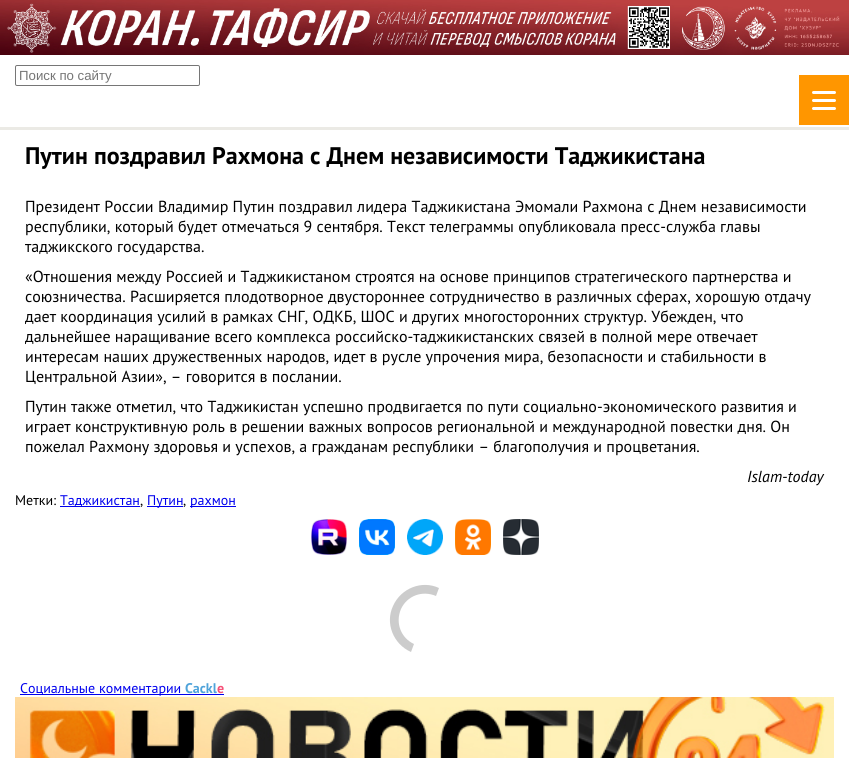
#include <cairo.h>
#include <math.h>
#include <stddef.h>

typedef struct { double x, y; const char *s; } line_t;

static void ink(cairo_t *ctx, unsigned color) {
    cairo_set_source_rgb(ctx, (color >> 16) / 255.0, (color >> 8 & 255) / 255.0, (color & 255) / 255.0);
}

static void round_path(cairo_t *ctx, double x, double y, double w, double h, double r) {
    cairo_new_sub_path(ctx);
    cairo_arc(ctx, x + w - r, y + h - r, r, 0, M_PI / 2);
    cairo_arc(ctx, x + r, y + h - r, r, M_PI / 2, M_PI);
    cairo_arc(ctx, x + r, y + r, r, M_PI, 1.5 * M_PI);
    cairo_arc(ctx, x + w - r, y + r, r, 1.5 * M_PI, 2 * M_PI);
    cairo_close_path(ctx);
}

static void paste(cairo_t *ctx, const char *path, double x, double y, double w, double h) {
    cairo_surface_t *image = cairo_image_surface_create_from_png(path);
    cairo_save(ctx);
    cairo_set_source_surface(ctx, image, x, y);
    cairo_rectangle(ctx, x, y, w, h);
    cairo_fill(ctx);
    cairo_restore(ctx);
    cairo_surface_destroy(image);
}

int main(void) {
    cairo_surface_t *surface = cairo_image_surface_create(CAIRO_FORMAT_RGB24, 849, 758);
    cairo_t *ctx = cairo_create(surface);
    cairo_font_options_t *options = cairo_font_options_create();
    cairo_font_options_set_hint_metrics(options, CAIRO_HINT_METRICS_OFF);
    cairo_font_options_set_hint_style(options, CAIRO_HINT_STYLE_NONE);
    cairo_set_font_options(ctx, options);
    cairo_set_miter_limit(ctx, 4);
    ink(ctx, 0xFFFFFF);
    cairo_paint(ctx);
    paste(ctx, "media/1.png", 0, 0, 849, 55);
    ink(ctx, 0xEBEAE5);
    cairo_rectangle(ctx, 0, 127, 849, 3);
    cairo_fill(ctx);
    round_path(ctx, 15.5, 65.5, 184, 20, 1.5);
    ink(ctx, 0x767676);
    cairo_set_line_width(ctx, 1);
    cairo_stroke(ctx);
    cairo_select_font_face(ctx, "Liberation Sans", CAIRO_FONT_SLANT_NORMAL, CAIRO_FONT_WEIGHT_NORMAL);
    cairo_set_font_size(ctx, 13.25);
    ink(ctx, 0x757575);
    cairo_move_to(ctx, 19, 80);
    cairo_show_text(ctx, "Поиск по сайту");
    ink(ctx, 0xFF9600);
    cairo_rectangle(ctx, 799, 75, 50, 50);
    cairo_fill(ctx);
    ink(ctx, 0xFFFFFF);
    round_path(ctx, 812, 91, 24, 3, 1.5);
    cairo_fill(ctx);
    round_path(ctx, 812, 99, 24, 3, 1.5);
    cairo_fill(ctx);
    round_path(ctx, 812, 107, 24, 3, 1.5);
    cairo_fill(ctx);
    cairo_select_font_face(ctx, "PT Sans", CAIRO_FONT_SLANT_NORMAL, CAIRO_FONT_WEIGHT_BOLD);
    cairo_set_font_size(ctx, 24);
    ink(ctx, 0x000000);
    cairo_move_to(ctx, 25, 164);
    cairo_show_text(ctx, "Путин поздравил Рахмона с Днем независимости Таджикистана");
    cairo_select_font_face(ctx, "PT Sans", CAIRO_FONT_SLANT_NORMAL, CAIRO_FONT_WEIGHT_NORMAL);
    cairo_set_font_size(ctx, 16);
    {
        static const line_t items[] = {
            {25, 212, "Президент России Владимир Путин поздравил лидера Таджикистана Эмомали Рахмона с Днем независимости"},
            {25, 232, "республики, который будет отмечаться 9 сентября. Текст телеграммы опубликовала пресс-служба главы"},
            {25, 252, "таджикского государства."},
            {25, 282, "«Отношения между Россией и Таджикистаном строятся на основе принципов стратегического партнерства и"},
            {25, 302, "союзничества. Расширяется плодотворное двустороннее сотрудничество в различных сферах, хорошую отдачу"},
            {25, 322, "дает координация усилий в рамках СНГ, ОДКБ, ШОС и других многосторонних структур. Убежден, что"},
            {25, 342, "дальнейшее наращивание всего комплекса российско-таджикистанских связей в полной мере отвечает"},
            {25, 362, "интересам наших дружественных народов, идет в русле упрочения мира, безопасности и стабильности в"},
            {25, 382, "Центральной Азии», – говорится в послании."},
            {25, 412, "Путин также отметил, что Таджикистан успешно продвигается по пути социально-экономического развития и"},
            {25, 432, "играет конструктивную роль в решении важных вопросов региональной и международной повестки дня. Он"},
            {25, 452, "пожелал Рахмону здоровья и успехов, а гражданам республики – благополучия и процветания."},
        };
        for (size_t i = 0; i < sizeof items / sizeof *items; i++) {
            cairo_move_to(ctx, items[i].x, items[i].y);
            cairo_show_text(ctx, items[i].s);
        }
    }
    cairo_select_font_face(ctx, "PT Sans", CAIRO_FONT_SLANT_ITALIC, CAIRO_FONT_WEIGHT_NORMAL);
    cairo_move_to(ctx, 747, 482);
    cairo_show_text(ctx, "Islam-today");
    cairo_select_font_face(ctx, "PT Sans", CAIRO_FONT_SLANT_NORMAL, CAIRO_FONT_WEIGHT_NORMAL);
    cairo_set_font_size(ctx, 14);
    cairo_move_to(ctx, 15, 505);
    cairo_show_text(ctx, "Метки:");
    ink(ctx, 0x0000EE);
    cairo_rectangle(ctx, 60, 506, 80, 1);
    cairo_fill(ctx);
    cairo_move_to(ctx, 60, 505);
    cairo_show_text(ctx, "Таджикистан");
    ink(ctx, 0x000000);
    cairo_move_to(ctx, 140, 505);
    cairo_show_text(ctx, ",");
    ink(ctx, 0x0000EE);
    cairo_rectangle(ctx, 147, 506, 36, 1);
    cairo_fill(ctx);
    cairo_move_to(ctx, 147, 505);
    cairo_show_text(ctx, "Путин");
    ink(ctx, 0x000000);
    cairo_move_to(ctx, 183, 505);
    cairo_show_text(ctx, ",");
    ink(ctx, 0x0000EE);
    cairo_rectangle(ctx, 190, 506, 46, 1);
    cairo_fill(ctx);
    cairo_move_to(ctx, 190, 505);
    cairo_show_text(ctx, "рахмон");
    paste(ctx, "media/2.png", 311, 519, 36, 36);
    paste(ctx, "media/3.png", 359, 519, 36, 36);
    paste(ctx, "media/4.png", 407, 519, 36, 36);
    paste(ctx, "media/5.png", 455, 519, 36, 36);
    paste(ctx, "media/6.png", 503, 519, 36, 36);
    ink(ctx, 0xCCCCCC);
    cairo_new_path(ctx);
    cairo_move_to(ctx, 439, 588);
    cairo_curve_to(ctx, 422, 580, 401, 588, 393, 606);
    cairo_curve_to(ctx, 385, 623, 393, 644, 411, 652);
    cairo_line_to(ctx, 414, 644);
    cairo_curve_to(ctx, 401, 638, 395, 623, 401, 609);
    cairo_curve_to(ctx, 407, 596, 422, 590, 436, 596);
    cairo_close_path(ctx);
    cairo_fill(ctx);
    ink(ctx, 0x0000EE);
    cairo_rectangle(ctx, 20, 694, 204, 1);
    cairo_fill(ctx);
    cairo_move_to(ctx, 20, 693);
    cairo_show_text(ctx, "Социальные комментарии");
    cairo_select_font_face(ctx, "PT Sans", CAIRO_FONT_SLANT_NORMAL, CAIRO_FONT_WEIGHT_BOLD);
    ink(ctx, 0x4FA3DA);
    cairo_move_to(ctx, 185, 693);
    cairo_show_text(ctx, "Cackl");
    ink(ctx, 0xF65077);
    cairo_move_to(ctx, 217, 693);
    cairo_show_text(ctx, "e");
    paste(ctx, "media/7.png", 15, 697, 819, 61);
    cairo_surface_write_to_png(surface, "image.png");
    cairo_font_options_destroy(options);
    cairo_destroy(ctx);
    cairo_surface_destroy(surface);
    return 0;
}
